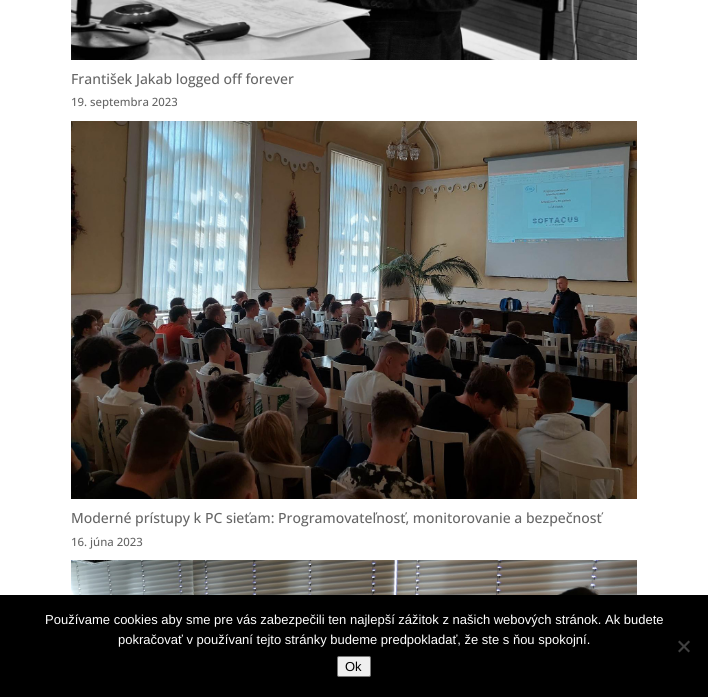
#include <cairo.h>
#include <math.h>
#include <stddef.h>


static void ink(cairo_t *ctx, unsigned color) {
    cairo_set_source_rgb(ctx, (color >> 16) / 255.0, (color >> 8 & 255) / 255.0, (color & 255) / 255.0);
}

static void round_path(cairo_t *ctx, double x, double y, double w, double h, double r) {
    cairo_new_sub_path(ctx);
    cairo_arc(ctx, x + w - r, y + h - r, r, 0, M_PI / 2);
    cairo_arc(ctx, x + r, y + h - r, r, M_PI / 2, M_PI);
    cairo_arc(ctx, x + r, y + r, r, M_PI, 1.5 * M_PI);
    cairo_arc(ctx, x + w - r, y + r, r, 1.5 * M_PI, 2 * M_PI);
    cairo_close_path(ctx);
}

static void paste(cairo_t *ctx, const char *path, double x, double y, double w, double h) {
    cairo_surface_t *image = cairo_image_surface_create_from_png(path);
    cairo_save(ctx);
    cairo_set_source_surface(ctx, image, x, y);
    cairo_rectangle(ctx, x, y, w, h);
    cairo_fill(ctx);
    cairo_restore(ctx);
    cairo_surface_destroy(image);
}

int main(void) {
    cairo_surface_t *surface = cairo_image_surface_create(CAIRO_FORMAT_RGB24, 708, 697);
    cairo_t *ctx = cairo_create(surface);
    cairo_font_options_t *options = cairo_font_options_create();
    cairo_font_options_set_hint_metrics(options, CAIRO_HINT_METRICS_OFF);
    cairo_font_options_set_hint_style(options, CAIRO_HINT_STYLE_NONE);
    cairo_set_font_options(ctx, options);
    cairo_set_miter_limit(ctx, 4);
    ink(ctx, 0xFFFFFF);
    cairo_paint(ctx);
    paste(ctx, "media/1.png", 71, 0, 566, 60);
    cairo_select_font_face(ctx, "Open Sans Medium", CAIRO_FONT_SLANT_NORMAL, CAIRO_FONT_WEIGHT_NORMAL);
    cairo_set_font_size(ctx, 14);
    ink(ctx, 0x666666);
    cairo_move_to(ctx, 71, 84);
    cairo_show_text(ctx, "František Jakab logged off forever");
    cairo_set_font_size(ctx, 11.4);
    cairo_move_to(ctx, 71, 106);
    cairo_show_text(ctx, "19. septembra 2023");
    paste(ctx, "media/2.png", 71, 121, 566, 378);
    cairo_set_font_size(ctx, 14);
    cairo_move_to(ctx, 71, 523);
    cairo_show_text(ctx, "Moderné prístupy k PC sieťam: Programovateľnosť, monitorovanie a bezpečnosť");
    cairo_set_font_size(ctx, 11.4);
    cairo_move_to(ctx, 71, 546);
    cairo_show_text(ctx, "16. júna 2023");
    paste(ctx, "media/3.png", 71, 560, 566, 35);
    ink(ctx, 0x000000);
    cairo_rectangle(ctx, 0, 595, 708, 102);
    cairo_fill(ctx);
    cairo_select_font_face(ctx, "Liberation Sans", CAIRO_FONT_SLANT_NORMAL, CAIRO_FONT_WEIGHT_NORMAL);
    cairo_set_font_size(ctx, 13);
    ink(ctx, 0xFFFFFF);
    cairo_move_to(ctx, 45, 624);
    cairo_show_text(ctx, "Používame cookies aby sme pre vás zabezpečili ten najlepší zážitok z našich webových stránok. Ak budete");
    cairo_move_to(ctx, 118, 644);
    cairo_show_text(ctx, "pokračovať v používaní tejto stránky budeme predpokladať, že ste s ňou spokojní.");
    ink(ctx, 0x404040);
    cairo_new_path(ctx);
    cairo_move_to(ctx, 688.5, 640.5);
    cairo_line_to(ctx, 690, 642);
    cairo_line_to(ctx, 679.5, 652.5);
    cairo_line_to(ctx, 678, 651);
    cairo_close_path(ctx);
    cairo_fill(ctx);
    cairo_new_path(ctx);
    cairo_move_to(ctx, 678, 642);
    cairo_line_to(ctx, 679.5, 640.5);
    cairo_line_to(ctx, 690, 651);
    cairo_line_to(ctx, 688.5, 652.5);
    cairo_close_path(ctx);
    cairo_fill(ctx);
    ink(ctx, 0xEFEFEF);
    round_path(ctx, 337.5, 656.5, 33, 20, 1.5);
    cairo_fill_preserve(ctx);
    ink(ctx, 0x767676);
    cairo_set_line_width(ctx, 1);
    cairo_stroke(ctx);
    ink(ctx, 0x000000);
    cairo_move_to(ctx, 345, 671);
    cairo_show_text(ctx, "Ok");
    cairo_surface_write_to_png(surface, "image.png");
    cairo_font_options_destroy(options);
    cairo_destroy(ctx);
    cairo_surface_destroy(surface);
    return 0;
}
